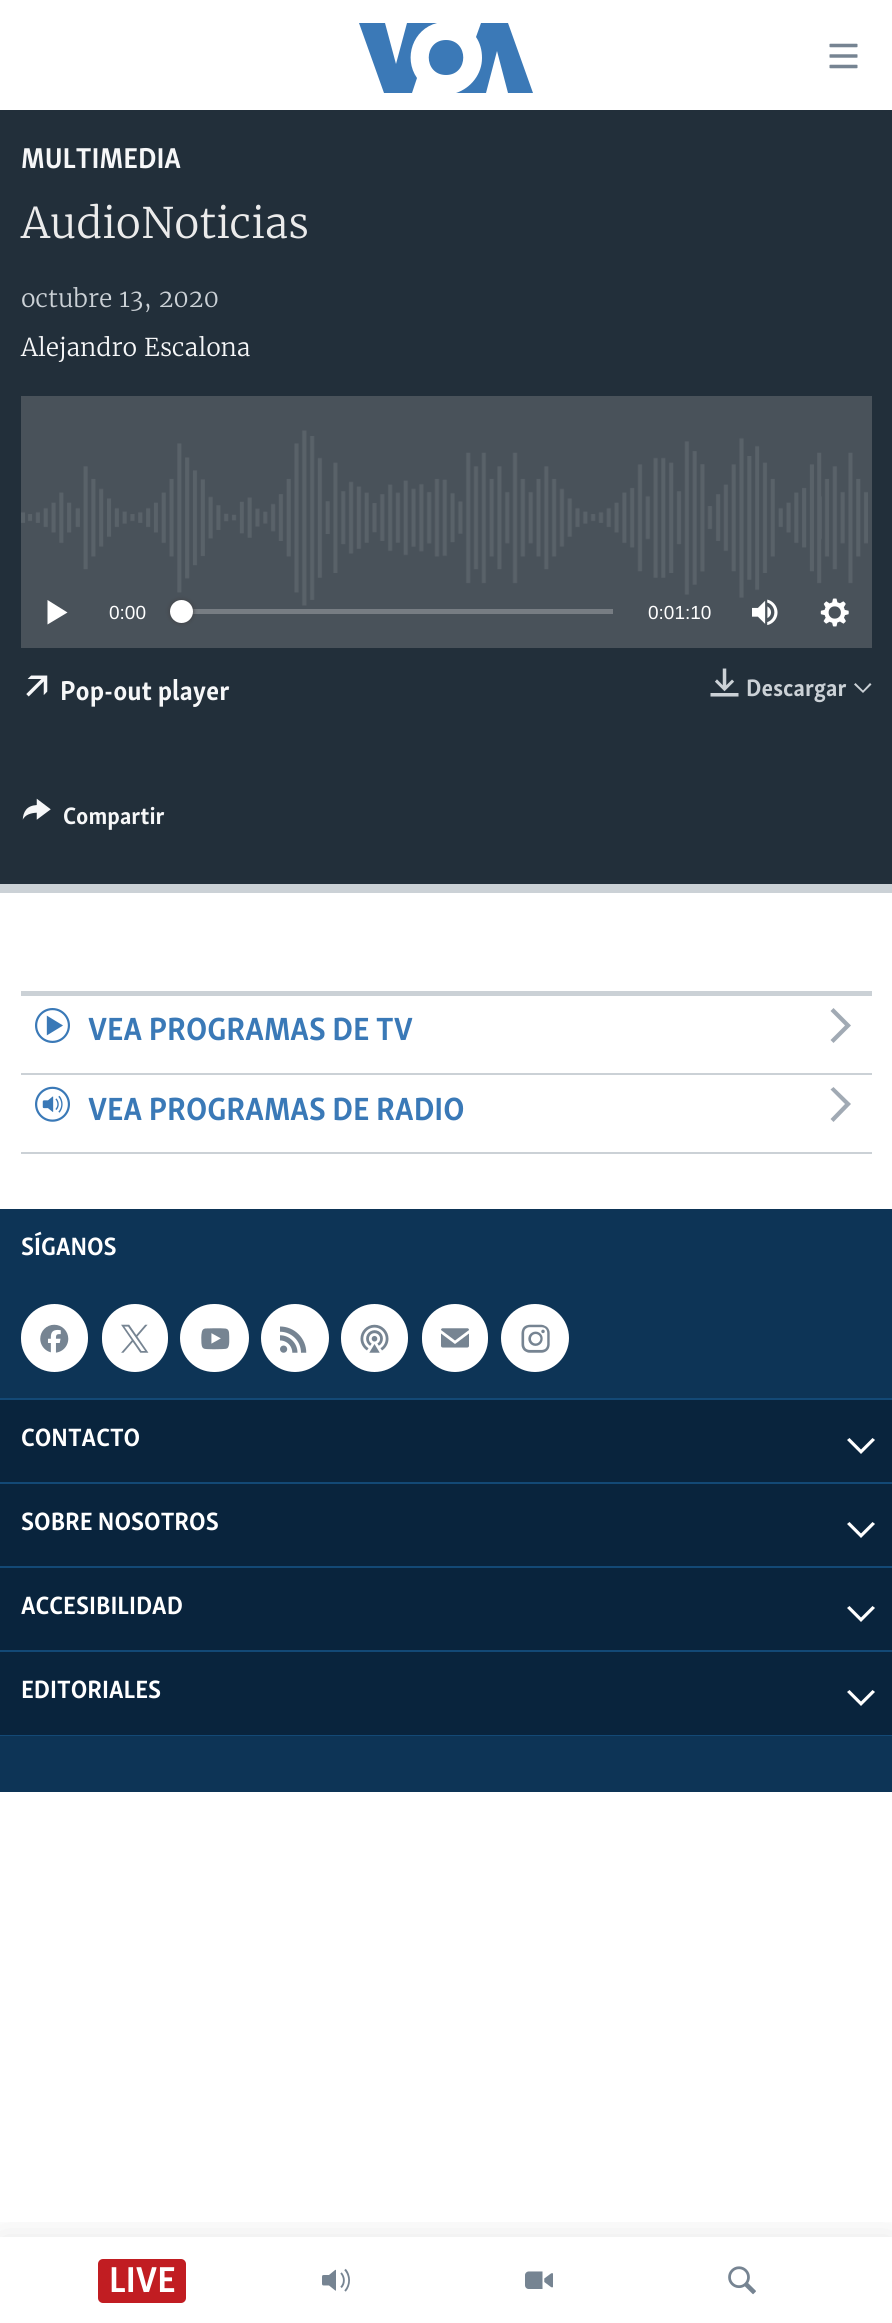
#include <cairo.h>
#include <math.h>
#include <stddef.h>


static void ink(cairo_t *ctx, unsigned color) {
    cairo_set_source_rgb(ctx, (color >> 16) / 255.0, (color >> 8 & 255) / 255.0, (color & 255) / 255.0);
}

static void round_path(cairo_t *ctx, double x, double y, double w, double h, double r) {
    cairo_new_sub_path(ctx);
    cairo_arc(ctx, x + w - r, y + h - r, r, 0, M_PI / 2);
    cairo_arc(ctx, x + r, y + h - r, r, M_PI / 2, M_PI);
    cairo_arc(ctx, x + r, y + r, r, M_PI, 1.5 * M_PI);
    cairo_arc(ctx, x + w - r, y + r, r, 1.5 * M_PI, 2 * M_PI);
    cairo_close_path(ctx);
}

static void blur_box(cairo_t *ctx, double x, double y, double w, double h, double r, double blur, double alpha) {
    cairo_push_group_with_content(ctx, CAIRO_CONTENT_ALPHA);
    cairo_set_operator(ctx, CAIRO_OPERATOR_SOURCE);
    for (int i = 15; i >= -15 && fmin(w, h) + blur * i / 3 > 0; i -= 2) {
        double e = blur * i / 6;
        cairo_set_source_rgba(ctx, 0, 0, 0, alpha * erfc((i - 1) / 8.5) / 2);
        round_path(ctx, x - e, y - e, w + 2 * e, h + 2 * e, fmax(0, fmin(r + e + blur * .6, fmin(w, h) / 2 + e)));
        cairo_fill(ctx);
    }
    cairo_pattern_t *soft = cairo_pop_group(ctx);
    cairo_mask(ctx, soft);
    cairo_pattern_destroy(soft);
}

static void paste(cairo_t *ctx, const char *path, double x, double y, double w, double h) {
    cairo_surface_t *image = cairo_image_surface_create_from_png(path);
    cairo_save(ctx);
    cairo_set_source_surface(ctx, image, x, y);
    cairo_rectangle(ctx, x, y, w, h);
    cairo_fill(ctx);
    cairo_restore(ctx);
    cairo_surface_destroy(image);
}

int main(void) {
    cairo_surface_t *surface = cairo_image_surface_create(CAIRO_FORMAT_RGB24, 892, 2323);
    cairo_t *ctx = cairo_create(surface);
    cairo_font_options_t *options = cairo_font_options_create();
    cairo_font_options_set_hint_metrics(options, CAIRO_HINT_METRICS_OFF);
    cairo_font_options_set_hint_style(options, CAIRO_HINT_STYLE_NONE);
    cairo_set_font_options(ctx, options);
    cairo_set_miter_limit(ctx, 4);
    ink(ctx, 0xFFFFFF);
    cairo_paint(ctx);
    ink(ctx, 0x222F3A);
    cairo_rectangle(ctx, 0, 110, 892, 774);
    cairo_fill(ctx);
    ink(ctx, 0xCBD1D6);
    cairo_rectangle(ctx, 0, 884, 892, 9);
    cairo_fill(ctx);
    cairo_select_font_face(ctx, "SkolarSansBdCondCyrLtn", CAIRO_FONT_SLANT_NORMAL, CAIRO_FONT_WEIGHT_BOLD);
    cairo_set_font_size(ctx, 29.5);
    ink(ctx, 0xF6F7F8);
    cairo_move_to(ctx, 21, 168);
    cairo_show_text(ctx, "MULTIMEDIA");
    cairo_select_font_face(ctx, "Merriweather Light", CAIRO_FONT_SLANT_NORMAL, CAIRO_FONT_WEIGHT_NORMAL);
    cairo_set_font_size(ctx, 42);
    ink(ctx, 0xEBEBEB);
    cairo_move_to(ctx, 21, 238);
    cairo_show_text(ctx, "AudioNoticias");
    cairo_set_font_size(ctx, 24.5);
    ink(ctx, 0xCBD1D6);
    cairo_move_to(ctx, 21, 307);
    cairo_show_text(ctx, "octubre 13, 2020");
    ink(ctx, 0xF6F7F8);
    cairo_move_to(ctx, 21, 356);
    cairo_show_text(ctx, "Alejandro Escalona");
    ink(ctx, 0x49525A);
    cairo_rectangle(ctx, 21, 396, 851, 252);
    cairo_fill(ctx);
    paste(ctx, "media/1.png", 21, 430, 847, 176);
    ink(ctx, 0xFFFFFF);
    cairo_new_path(ctx);
    cairo_move_to(ctx, 47.5, 624.5);
    cairo_line_to(ctx, 67.5, 612.5);
    cairo_line_to(ctx, 47.5, 600);
    cairo_close_path(ctx);
    cairo_fill(ctx);
    cairo_select_font_face(ctx, "Liberation Sans", CAIRO_FONT_SLANT_NORMAL, CAIRO_FONT_WEIGHT_NORMAL);
    cairo_set_font_size(ctx, 19);
    cairo_move_to(ctx, 109, 619);
    cairo_show_text(ctx, "0:00");
    ink(ctx, 0x777D83);
    cairo_rectangle(ctx, 192, 609, 421, 5);
    cairo_fill(ctx);
    ink(ctx, 0x414144);
    blur_box(ctx, 170, 600, 23, 23, 11.5, 2.5, 1);
    ink(ctx, 0xFFFFFF);
    cairo_arc(ctx, 181.5, 611.5, 11.5, 0, 2 * M_PI);
    cairo_fill(ctx);
    cairo_move_to(ctx, 648, 619);
    cairo_show_text(ctx, "0:01:10");
    paste(ctx, "media/2.png", 752, 599, 26, 26);
    paste(ctx, "media/3.png", 820, 598, 29, 29);
    paste(ctx, "media/4.png", 26, 675, 22, 22);
    cairo_select_font_face(ctx, "SkolarSansBdCondCyrLtn", CAIRO_FONT_SLANT_NORMAL, CAIRO_FONT_WEIGHT_BOLD);
    cairo_set_font_size(ctx, 28);
    ink(ctx, 0xF6F7F8);
    cairo_move_to(ctx, 60, 700);
    cairo_show_text(ctx, "Pop-out player");
    paste(ctx, "media/5.png", 710, 668, 29, 29);
    cairo_set_font_size(ctx, 24.5);
    ink(ctx, 0xCBD1D6);
    cairo_move_to(ctx, 746, 696);
    cairo_show_text(ctx, "Descargar");
    cairo_new_path(ctx);
    cairo_move_to(ctx, 854, 684.5);
    cairo_line_to(ctx, 863, 693);
    cairo_line_to(ctx, 871.5, 684.5);
    cairo_line_to(ctx, 870, 683);
    cairo_line_to(ctx, 863, 690.5);
    cairo_line_to(ctx, 855.5, 683);
    cairo_close_path(ctx);
    cairo_fill(ctx);
    paste(ctx, "media/6.png", 22, 798, 29, 22);
    ink(ctx, 0xF6F7F8);
    cairo_move_to(ctx, 63, 824);
    cairo_show_text(ctx, "Compartir");
    ink(ctx, 0xCBD1D6);
    cairo_rectangle(ctx, 21, 991, 851, 5);
    cairo_fill(ctx);
    cairo_rectangle(ctx, 21, 1073, 851, 2);
    cairo_fill(ctx);
    paste(ctx, "media/7.png", 35, 1008, 35, 35);
    cairo_set_font_size(ctx, 33);
    ink(ctx, 0x3A79B7);
    cairo_move_to(ctx, 88, 1040);
    cairo_show_text(ctx, "VEA PROGRAMAS DE TV");
    ink(ctx, 0xA1AAB4);
    cairo_new_path(ctx);
    cairo_move_to(ctx, 833.5, 1043);
    cairo_line_to(ctx, 851, 1025.5);
    cairo_line_to(ctx, 833.5, 1008);
    cairo_line_to(ctx, 830.5, 1011);
    cairo_line_to(ctx, 845, 1025.5);
    cairo_line_to(ctx, 830.5, 1040);
    cairo_close_path(ctx);
    cairo_fill(ctx);
    ink(ctx, 0xCBD1D6);
    cairo_rectangle(ctx, 21, 1152, 851, 2);
    cairo_fill(ctx);
    paste(ctx, "media/8.png", 35, 1086, 35, 36);
    ink(ctx, 0x3A79B7);
    cairo_move_to(ctx, 88, 1120);
    cairo_show_text(ctx, "VEA PROGRAMAS DE RADIO");
    ink(ctx, 0xA1AAB4);
    cairo_new_path(ctx);
    cairo_move_to(ctx, 833.5, 1122);
    cairo_line_to(ctx, 851, 1104);
    cairo_line_to(ctx, 833.5, 1087);
    cairo_line_to(ctx, 830.5, 1089.5);
    cairo_line_to(ctx, 845, 1104);
    cairo_line_to(ctx, 830.5, 1119);
    cairo_close_path(ctx);
    cairo_fill(ctx);
    ink(ctx, 0x0D3456);
    cairo_rectangle(ctx, 0, 1209, 892, 583);
    cairo_fill(ctx);
    ink(ctx, 0x134976);
    cairo_rectangle(ctx, 0, 1735, 892, 1);
    cairo_fill(ctx);
    cairo_set_font_size(ctx, 25.75);
    ink(ctx, 0xFFFFFF);
    cairo_move_to(ctx, 21, 1255);
    cairo_show_text(ctx, "SÍGANOS");
    round_path(ctx, 21, 1304, 67, 68, 33.5);
    cairo_fill(ctx);
    paste(ctx, "media/9.png", 40, 1324, 29, 29);
    round_path(ctx, 102, 1304, 66, 68, 33);
    cairo_fill(ctx);
    paste(ctx, "media/10.png", 121, 1324, 28, 29);
    round_path(ctx, 180, 1304, 69, 68, 34);
    cairo_fill(ctx);
    paste(ctx, "media/11.png", 201, 1328, 29, 22);
    cairo_arc(ctx, 295, 1338, 34, 0, 2 * M_PI);
    cairo_fill(ctx);
    paste(ctx, "media/12.png", 280, 1326, 27, 27);
    round_path(ctx, 341, 1304, 67, 68, 33.5);
    cairo_fill(ctx);
    paste(ctx, "media/13.png", 360, 1324, 29, 29);
    round_path(ctx, 422, 1304, 66, 68, 33);
    cairo_fill(ctx);
    paste(ctx, "media/14.png", 441, 1328, 28, 20);
    cairo_arc(ctx, 535, 1338, 34, 0, 2 * M_PI);
    cairo_fill(ctx);
    paste(ctx, "media/15.png", 521, 1324, 29, 29);
    ink(ctx, 0x134976);
    cairo_rectangle(ctx, 0, 1398, 892, 2);
    cairo_fill(ctx);
    ink(ctx, 0x09243D);
    cairo_rectangle(ctx, 0, 1400, 892, 82);
    cairo_fill(ctx);
    ink(ctx, 0xFFFFFF);
    cairo_move_to(ctx, 21, 1446);
    cairo_show_text(ctx, "CONTACTO");
    cairo_new_path(ctx);
    cairo_move_to(ctx, 847, 1440);
    cairo_line_to(ctx, 861, 1454);
    cairo_line_to(ctx, 875, 1440);
    cairo_line_to(ctx, 872.5, 1438);
    cairo_line_to(ctx, 861, 1449.5);
    cairo_line_to(ctx, 849.5, 1438);
    cairo_close_path(ctx);
    cairo_fill(ctx);
    ink(ctx, 0x134976);
    cairo_rectangle(ctx, 0, 1482, 892, 2);
    cairo_fill(ctx);
    ink(ctx, 0x09243D);
    cairo_rectangle(ctx, 0, 1484, 892, 82);
    cairo_fill(ctx);
    ink(ctx, 0xFFFFFF);
    cairo_move_to(ctx, 21, 1530);
    cairo_show_text(ctx, "SOBRE NOSOTROS");
    cairo_new_path(ctx);
    cairo_move_to(ctx, 847, 1524);
    cairo_line_to(ctx, 861, 1538);
    cairo_line_to(ctx, 875, 1524);
    cairo_line_to(ctx, 872.5, 1522);
    cairo_line_to(ctx, 861, 1533.5);
    cairo_line_to(ctx, 849.5, 1522);
    cairo_close_path(ctx);
    cairo_fill(ctx);
    ink(ctx, 0x134976);
    cairo_rectangle(ctx, 0, 1566, 892, 2);
    cairo_fill(ctx);
    ink(ctx, 0x09243D);
    cairo_rectangle(ctx, 0, 1568, 892, 82);
    cairo_fill(ctx);
    ink(ctx, 0xFFFFFF);
    cairo_move_to(ctx, 21, 1614);
    cairo_show_text(ctx, "ACCESIBILIDAD");
    cairo_new_path(ctx);
    cairo_move_to(ctx, 847, 1608);
    cairo_line_to(ctx, 861, 1622);
    cairo_line_to(ctx, 875, 1608);
    cairo_line_to(ctx, 872.5, 1606);
    cairo_line_to(ctx, 861, 1617.5);
    cairo_line_to(ctx, 849.5, 1606);
    cairo_close_path(ctx);
    cairo_fill(ctx);
    ink(ctx, 0x134976);
    cairo_rectangle(ctx, 0, 1650, 892, 2);
    cairo_fill(ctx);
    ink(ctx, 0x09243D);
    cairo_rectangle(ctx, 0, 1652, 892, 83);
    cairo_fill(ctx);
    ink(ctx, 0xFFFFFF);
    cairo_move_to(ctx, 21, 1698);
    cairo_show_text(ctx, "EDITORIALES");
    cairo_new_path(ctx);
    cairo_move_to(ctx, 847, 1692);
    cairo_line_to(ctx, 861, 1706);
    cairo_line_to(ctx, 875, 1692);
    cairo_line_to(ctx, 872.5, 1690);
    cairo_line_to(ctx, 861, 1701.5);
    cairo_line_to(ctx, 849.5, 1690);
    cairo_close_path(ctx);
    cairo_fill(ctx);
    ink(ctx, 0x3B79B7);
    cairo_new_path(ctx);
    cairo_move_to(ctx, 417, 78);
    cairo_line_to(ctx, 412, 93);
    cairo_line_to(ctx, 384, 93);
    cairo_line_to(ctx, 359, 23);
    cairo_line_to(ctx, 385, 23);
    cairo_line_to(ctx, 396, 64);
    cairo_line_to(ctx, 407, 23);
    cairo_line_to(ctx, 437, 23);
    cairo_curve_to(ctx, 413, 29, 403, 58, 417, 78);
    cairo_close_path(ctx);
    cairo_move_to(ctx, 446, 40);
    cairo_curve_to(ctx, 423, 40, 423, 75, 446, 75);
    cairo_curve_to(ctx, 469, 75, 469, 40, 446, 40);
    cairo_close_path(ctx);
    cairo_move_to(ctx, 482, 58);
    cairo_curve_to(ctx, 482, 74, 471, 88, 456, 93);
    cairo_line_to(ctx, 486, 93);
    cairo_line_to(ctx, 497, 51);
    cairo_line_to(ctx, 508, 93);
    cairo_line_to(ctx, 533, 93);
    cairo_line_to(ctx, 508, 23);
    cairo_line_to(ctx, 481, 23);
    cairo_line_to(ctx, 476, 37);
    cairo_curve_to(ctx, 480, 43, 482, 50, 482, 58);
    cairo_close_path(ctx);
    cairo_fill(ctx);
    paste(ctx, "media/16.png", 829, 43, 29, 26);
    cairo_save(ctx);
    cairo_rectangle(ctx, 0, 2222, 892, 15);
    cairo_clip(ctx);
    ink(ctx, 0x000000);
    blur_box(ctx, 0, 2237, 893, 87, 0, 17.5, 0.1);
    cairo_restore(ctx);
    ink(ctx, 0xC11D22);
    round_path(ctx, 98, 2259, 88, 44, 5);
    cairo_fill(ctx);
    cairo_set_font_size(ctx, 37);
    ink(ctx, 0xFFFFFF);
    cairo_move_to(ctx, 109, 2292);
    cairo_show_text(ctx, "LIVE");
    paste(ctx, "media/17.png", 322, 2268, 28, 24);
    paste(ctx, "media/18.png", 525, 2271, 28, 18);
    paste(ctx, "media/19.png", 728, 2266, 28, 29);
    cairo_surface_write_to_png(surface, "image.png");
    cairo_font_options_destroy(options);
    cairo_destroy(ctx);
    cairo_surface_destroy(surface);
    return 0;
}
